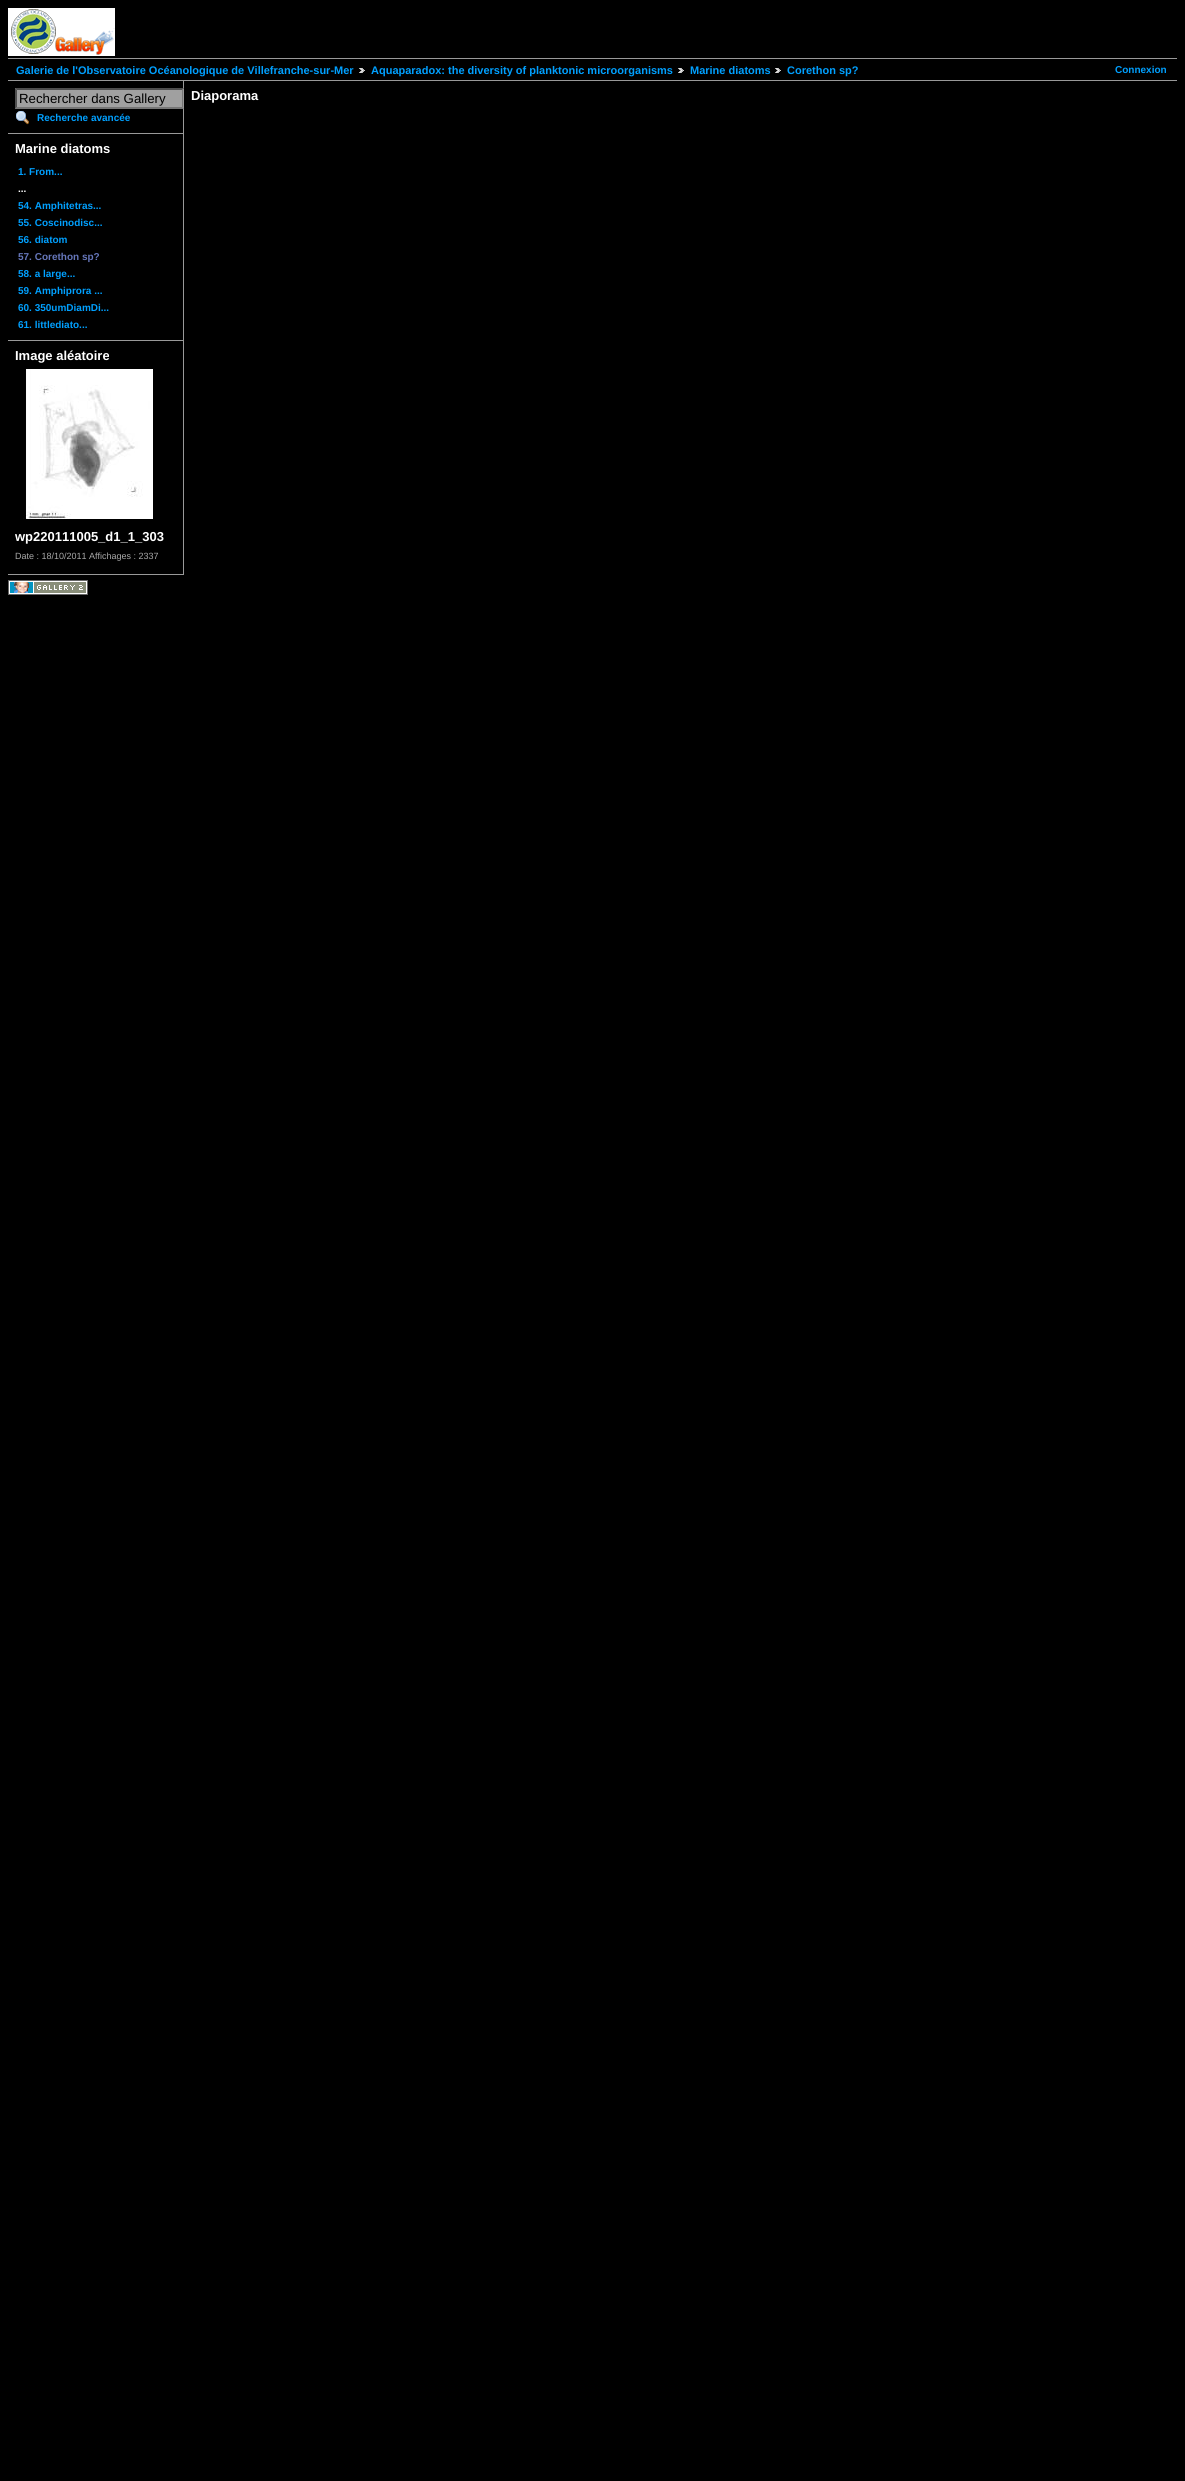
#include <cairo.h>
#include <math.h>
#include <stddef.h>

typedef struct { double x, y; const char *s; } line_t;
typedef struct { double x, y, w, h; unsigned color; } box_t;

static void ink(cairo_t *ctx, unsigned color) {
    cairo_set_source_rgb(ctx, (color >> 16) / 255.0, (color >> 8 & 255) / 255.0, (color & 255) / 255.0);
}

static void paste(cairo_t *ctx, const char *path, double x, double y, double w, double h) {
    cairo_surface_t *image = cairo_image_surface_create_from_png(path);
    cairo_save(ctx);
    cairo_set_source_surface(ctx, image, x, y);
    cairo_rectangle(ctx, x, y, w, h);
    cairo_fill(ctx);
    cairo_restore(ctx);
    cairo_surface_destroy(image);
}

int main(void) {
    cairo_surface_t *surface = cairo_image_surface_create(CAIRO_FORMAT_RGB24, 1185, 2481);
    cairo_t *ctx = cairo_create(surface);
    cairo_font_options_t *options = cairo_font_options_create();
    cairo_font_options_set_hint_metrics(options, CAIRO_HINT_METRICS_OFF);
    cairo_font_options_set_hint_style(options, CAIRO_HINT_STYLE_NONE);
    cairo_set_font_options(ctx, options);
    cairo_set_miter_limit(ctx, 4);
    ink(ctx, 0x000000);
    cairo_paint(ctx);
    paste(ctx, "media/1.png", 8, 8, 107, 48);
    ink(ctx, 0x999999);
    cairo_rectangle(ctx, 8, 58, 1169, 1);
    cairo_fill(ctx);
    cairo_rectangle(ctx, 8, 80, 1169, 1);
    cairo_fill(ctx);
    cairo_select_font_face(ctx, "Liberation Sans", CAIRO_FONT_SLANT_NORMAL, CAIRO_FONT_WEIGHT_BOLD);
    cairo_set_font_size(ctx, 11);
    ink(ctx, 0x00A0FF);
    cairo_move_to(ctx, 16, 74);
    cairo_show_text(ctx, "Galerie de l'Observatoire Océanologique de Villefranche-sur-Mer");
    paste(ctx, "media/2.png", 359, 68, 6, 5);
    cairo_move_to(ctx, 371, 74);
    cairo_show_text(ctx, "Aquaparadox: the diversity of planktonic microorganisms");
    paste(ctx, "media/2.png", 678, 68, 6, 5);
    cairo_move_to(ctx, 690, 74);
    cairo_show_text(ctx, "Marine diatoms");
    paste(ctx, "media/2.png", 775, 68, 6, 5);
    cairo_move_to(ctx, 787, 74);
    cairo_show_text(ctx, "Corethon sp?");
    cairo_set_font_size(ctx, 10);
    cairo_move_to(ctx, 1115, 73);
    cairo_show_text(ctx, "Connexion");
    {
        static const box_t items[] = {
            {183, 81, 1, 494, 0x999999},
            {8, 133, 175, 1, 0x999999},
            {15, 88, 168, 21, 0xA0A0A0},
        };
        for (size_t i = 0; i < sizeof items / sizeof *items; i++) {
            ink(ctx, items[i].color);
            cairo_rectangle(ctx, items[i].x, items[i].y, items[i].w, items[i].h);
            cairo_fill(ctx);
        }
    }
    ink(ctx, 0x4F4F4F);
    cairo_new_path(ctx);
    cairo_move_to(ctx, 15, 88);
    cairo_line_to(ctx, 184, 88);
    cairo_line_to(ctx, 182, 90);
    cairo_line_to(ctx, 17, 90);
    cairo_close_path(ctx);
    cairo_fill(ctx);
    cairo_save(ctx);
    cairo_rectangle(ctx, 8, 81, 175, 494);
    cairo_clip(ctx);
    ink(ctx, 0x767676);
    cairo_new_path(ctx);
    cairo_move_to(ctx, 184, 88);
    cairo_line_to(ctx, 184, 109);
    cairo_line_to(ctx, 182, 107);
    cairo_line_to(ctx, 182, 90);
    cairo_close_path(ctx);
    cairo_fill(ctx);
    cairo_restore(ctx);
    ink(ctx, 0x767676);
    cairo_new_path(ctx);
    cairo_move_to(ctx, 184, 109);
    cairo_line_to(ctx, 15, 109);
    cairo_line_to(ctx, 17, 107);
    cairo_line_to(ctx, 182, 107);
    cairo_close_path(ctx);
    cairo_fill(ctx);
    ink(ctx, 0x4F4F4F);
    cairo_new_path(ctx);
    cairo_move_to(ctx, 15, 109);
    cairo_line_to(ctx, 15, 88);
    cairo_line_to(ctx, 17, 90);
    cairo_line_to(ctx, 17, 107);
    cairo_close_path(ctx);
    cairo_fill(ctx);
    cairo_select_font_face(ctx, "Liberation Sans", CAIRO_FONT_SLANT_NORMAL, CAIRO_FONT_WEIGHT_NORMAL);
    cairo_set_font_size(ctx, 13.25);
    ink(ctx, 0x000000);
    cairo_move_to(ctx, 19, 103);
    cairo_show_text(ctx, "Rechercher dans Gallery");
    paste(ctx, "media/3.png", 16, 111, 13, 14);
    cairo_select_font_face(ctx, "Liberation Sans", CAIRO_FONT_SLANT_NORMAL, CAIRO_FONT_WEIGHT_BOLD);
    cairo_set_font_size(ctx, 10);
    ink(ctx, 0x00A0FF);
    cairo_move_to(ctx, 37, 121);
    cairo_show_text(ctx, "Recherche avancée");
    ink(ctx, 0x999999);
    cairo_rectangle(ctx, 8, 340, 175, 1);
    cairo_fill(ctx);
    cairo_set_font_size(ctx, 13);
    ink(ctx, 0xFFFFFF);
    cairo_move_to(ctx, 15, 153);
    cairo_show_text(ctx, "Marine diatoms");
    cairo_set_font_size(ctx, 10);
    ink(ctx, 0x00A0FF);
    cairo_move_to(ctx, 18, 175);
    cairo_show_text(ctx, "1. From...");
    ink(ctx, 0xFFFFFF);
    cairo_move_to(ctx, 18, 192);
    cairo_show_text(ctx, "...");
    ink(ctx, 0x00A0FF);
    {
        static const line_t items[] = {
            {18, 209, "54. Amphitetras..."},
            {18, 226, "55. Coscinodisc..."},
            {18, 243, "56. diatom"},
        };
        for (size_t i = 0; i < sizeof items / sizeof *items; i++) {
            cairo_move_to(ctx, items[i].x, items[i].y);
            cairo_show_text(ctx, items[i].s);
        }
    }
    ink(ctx, 0x6677BB);
    cairo_move_to(ctx, 18, 260);
    cairo_show_text(ctx, "57. Corethon sp?");
    ink(ctx, 0x00A0FF);
    {
        static const line_t items[] = {
            {18, 277, "58. a large..."},
            {18, 294, "59. Amphiprora ..."},
            {18, 311, "60. 350umDiamDi..."},
            {18, 328, "61. littlediato..."},
        };
        for (size_t i = 0; i < sizeof items / sizeof *items; i++) {
            cairo_move_to(ctx, items[i].x, items[i].y);
            cairo_show_text(ctx, items[i].s);
        }
    }
    ink(ctx, 0x999999);
    cairo_rectangle(ctx, 8, 574, 175, 1);
    cairo_fill(ctx);
    cairo_set_font_size(ctx, 13);
    ink(ctx, 0xFFFFFF);
    cairo_move_to(ctx, 15, 360);
    cairo_show_text(ctx, "Image aléatoire");
    paste(ctx, "media/4.png", 23, 369, 130, 150);
    cairo_move_to(ctx, 15, 541);
    cairo_show_text(ctx, "wp220111005_d1_1_303");
    cairo_select_font_face(ctx, "Liberation Sans", CAIRO_FONT_SLANT_NORMAL, CAIRO_FONT_WEIGHT_NORMAL);
    cairo_set_font_size(ctx, 9);
    ink(ctx, 0xAAAAAA);
    cairo_move_to(ctx, 15, 559);
    cairo_show_text(ctx, "Date : 18/10/2011 Affichages : 2337");
    cairo_select_font_face(ctx, "Liberation Sans", CAIRO_FONT_SLANT_NORMAL, CAIRO_FONT_WEIGHT_BOLD);
    cairo_set_font_size(ctx, 13);
    ink(ctx, 0xFFFFFF);
    cairo_move_to(ctx, 191, 100);
    cairo_show_text(ctx, "Diaporama");
    paste(ctx, "media/5.png", 8, 580, 80, 15);
    cairo_surface_write_to_png(surface, "image.png");
    cairo_font_options_destroy(options);
    cairo_destroy(ctx);
    cairo_surface_destroy(surface);
    return 0;
}
